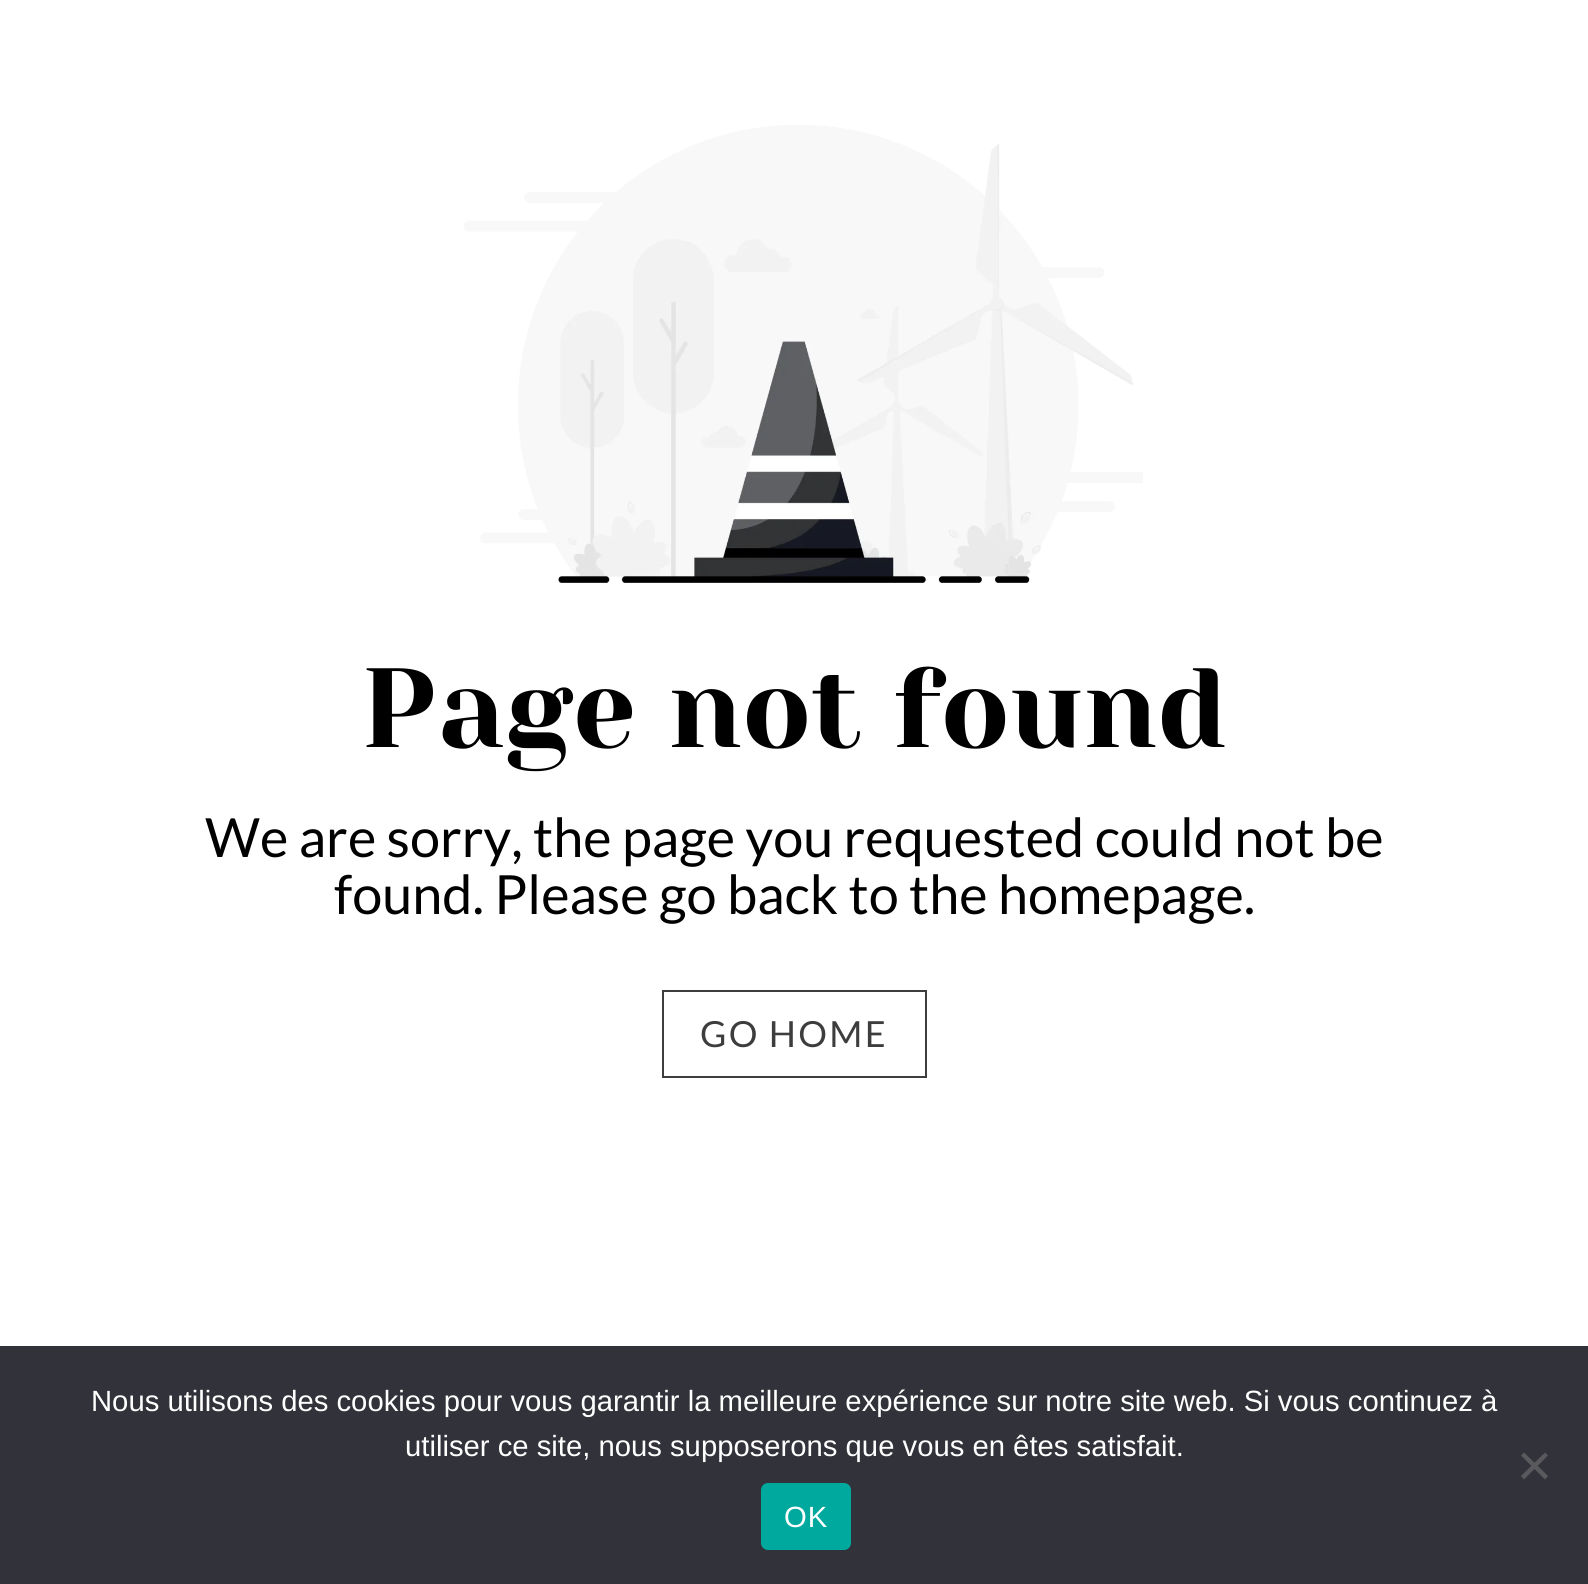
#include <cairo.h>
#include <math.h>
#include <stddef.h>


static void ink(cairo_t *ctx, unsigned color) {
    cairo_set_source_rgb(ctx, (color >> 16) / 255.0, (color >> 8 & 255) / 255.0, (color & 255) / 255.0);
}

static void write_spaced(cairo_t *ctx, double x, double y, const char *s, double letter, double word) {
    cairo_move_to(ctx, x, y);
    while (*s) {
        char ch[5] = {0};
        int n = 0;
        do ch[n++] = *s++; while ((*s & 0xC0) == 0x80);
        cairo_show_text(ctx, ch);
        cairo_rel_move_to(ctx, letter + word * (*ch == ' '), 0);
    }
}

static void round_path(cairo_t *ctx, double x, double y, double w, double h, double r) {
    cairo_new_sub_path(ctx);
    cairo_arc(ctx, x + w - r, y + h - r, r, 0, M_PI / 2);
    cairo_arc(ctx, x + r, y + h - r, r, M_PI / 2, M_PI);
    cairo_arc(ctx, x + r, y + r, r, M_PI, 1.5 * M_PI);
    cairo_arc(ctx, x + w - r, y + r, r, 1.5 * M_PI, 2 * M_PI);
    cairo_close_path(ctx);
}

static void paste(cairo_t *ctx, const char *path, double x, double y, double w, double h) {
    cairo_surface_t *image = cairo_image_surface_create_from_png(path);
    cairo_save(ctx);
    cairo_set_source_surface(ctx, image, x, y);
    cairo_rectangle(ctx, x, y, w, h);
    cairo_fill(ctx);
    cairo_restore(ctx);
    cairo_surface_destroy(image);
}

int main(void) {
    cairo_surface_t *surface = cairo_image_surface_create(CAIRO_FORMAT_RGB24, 1588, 1584);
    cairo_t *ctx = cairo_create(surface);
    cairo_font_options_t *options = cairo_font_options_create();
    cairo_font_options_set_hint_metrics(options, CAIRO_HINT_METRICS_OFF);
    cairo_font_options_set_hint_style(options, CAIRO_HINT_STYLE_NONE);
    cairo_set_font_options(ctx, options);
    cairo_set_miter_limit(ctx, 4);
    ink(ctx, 0xFFFFFF);
    cairo_paint(ctx);
    paste(ctx, "media/1.png", 464, 125, 679, 458);
    cairo_select_font_face(ctx, "Yeseva One", CAIRO_FONT_SLANT_NORMAL, CAIRO_FONT_WEIGHT_NORMAL);
    cairo_set_font_size(ctx, 112.5);
    ink(ctx, 0x000000);
    cairo_move_to(ctx, 361, 747);
    cairo_show_text(ctx, "Page not found");
    cairo_select_font_face(ctx, "Lato", CAIRO_FONT_SLANT_NORMAL, CAIRO_FONT_WEIGHT_NORMAL);
    cairo_set_font_size(ctx, 54);
    cairo_move_to(ctx, 205, 857);
    cairo_show_text(ctx, "We are sorry, the page you requested could not be");
    cairo_move_to(ctx, 334, 914);
    cairo_show_text(ctx, "found. Please go back to the homepage.");
    cairo_rectangle(ctx, 663, 991, 263, 86);
    ink(ctx, 0x3D3D3D);
    cairo_stroke(ctx);
    cairo_set_font_size(ctx, 36);
    write_spaced(ctx, 700, 1047, "GO HOME", 2.25, 0);
    ink(ctx, 0x32323A);
    cairo_rectangle(ctx, 0, 1346, 1588, 238);
    cairo_fill(ctx);
    cairo_select_font_face(ctx, "Liberation Sans", CAIRO_FONT_SLANT_NORMAL, CAIRO_FONT_WEIGHT_NORMAL);
    cairo_set_font_size(ctx, 29.25);
    ink(ctx, 0xFFFFFF);
    cairo_move_to(ctx, 91, 1411);
    cairo_show_text(ctx, "Nous utilisons des cookies pour vous garantir la meilleure expérience sur notre site web. Si vous continuez à");
    cairo_move_to(ctx, 405, 1456);
    cairo_show_text(ctx, "utiliser ce site, nous supposerons que vous en êtes satisfait.");
    ink(ctx, 0x59595D);
    cairo_new_path(ctx);
    cairo_move_to(ctx, 1545, 1452.5);
    cairo_line_to(ctx, 1548, 1455.5);
    cairo_line_to(ctx, 1524, 1479.5);
    cairo_line_to(ctx, 1521, 1476);
    cairo_close_path(ctx);
    cairo_fill(ctx);
    cairo_new_path(ctx);
    cairo_move_to(ctx, 1521, 1455.5);
    cairo_line_to(ctx, 1524, 1452.5);
    cairo_line_to(ctx, 1548, 1476);
    cairo_line_to(ctx, 1545, 1479.5);
    cairo_close_path(ctx);
    cairo_fill(ctx);
    ink(ctx, 0x00A99D);
    round_path(ctx, 761, 1483, 90, 67, 7);
    cairo_fill(ctx);
    ink(ctx, 0xFFFFFF);
    write_spaced(ctx, 784, 1527, "OK", 1, 0);
    cairo_surface_write_to_png(surface, "image.png");
    cairo_font_options_destroy(options);
    cairo_destroy(ctx);
    cairo_surface_destroy(surface);
    return 0;
}
